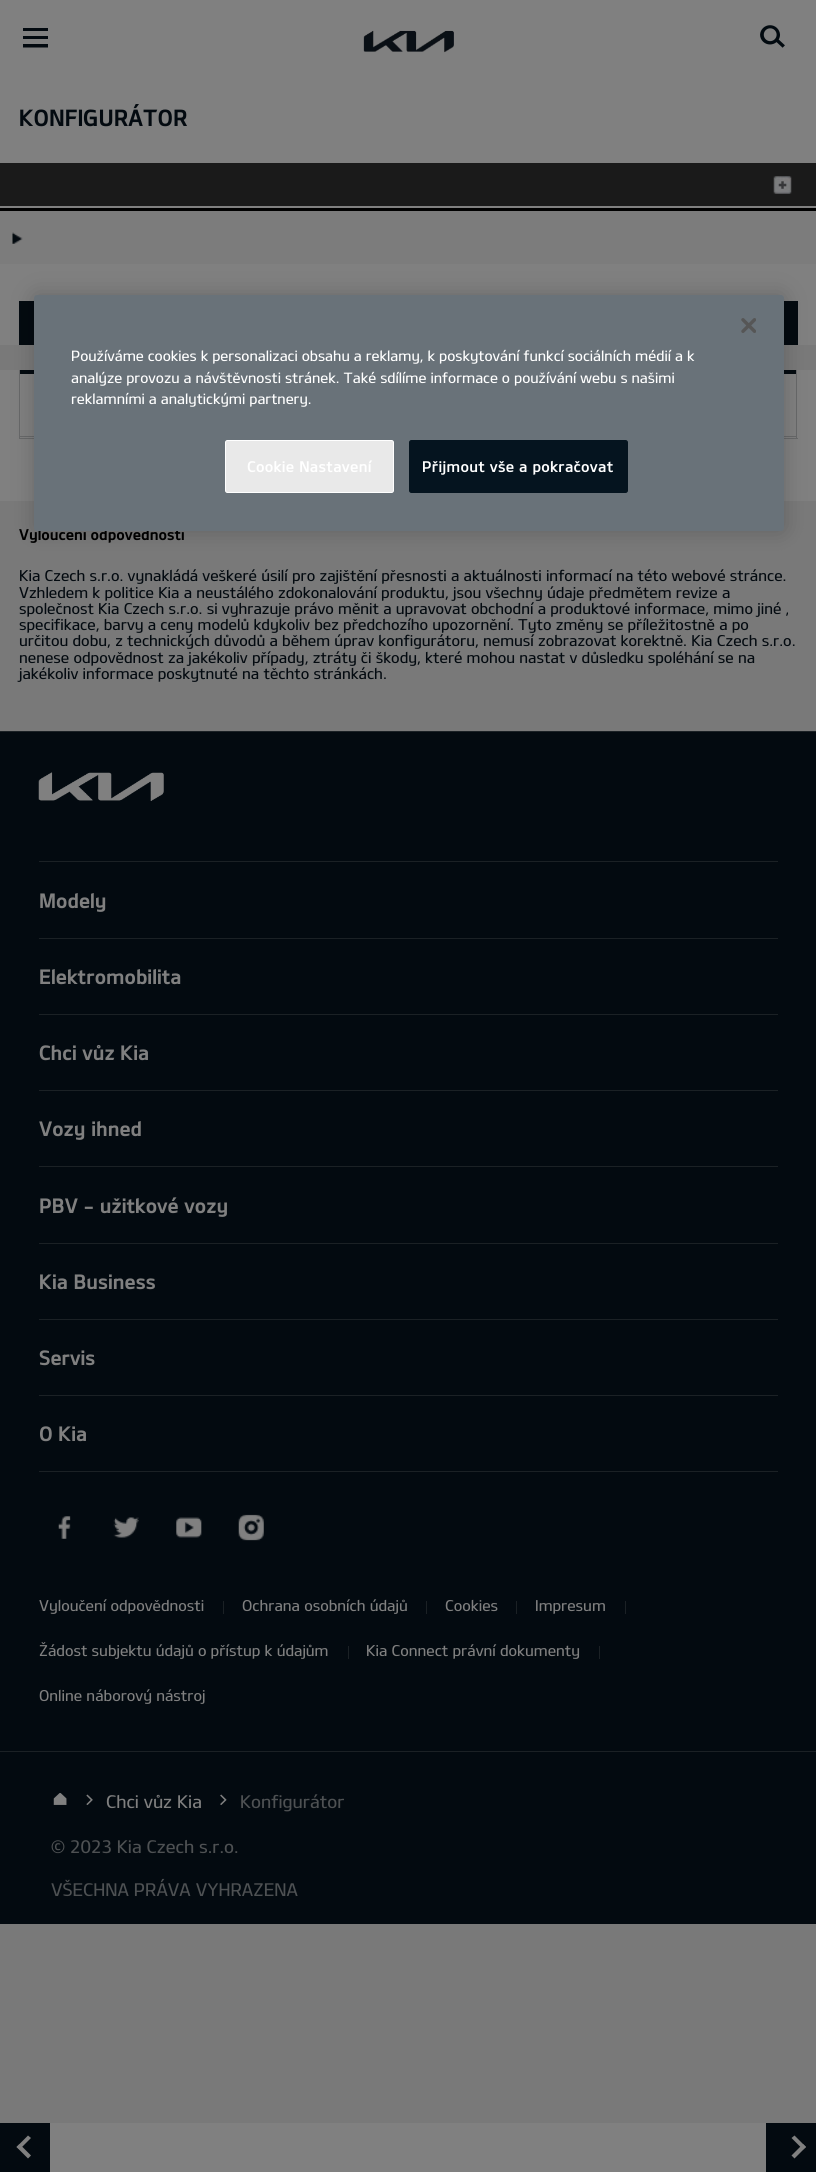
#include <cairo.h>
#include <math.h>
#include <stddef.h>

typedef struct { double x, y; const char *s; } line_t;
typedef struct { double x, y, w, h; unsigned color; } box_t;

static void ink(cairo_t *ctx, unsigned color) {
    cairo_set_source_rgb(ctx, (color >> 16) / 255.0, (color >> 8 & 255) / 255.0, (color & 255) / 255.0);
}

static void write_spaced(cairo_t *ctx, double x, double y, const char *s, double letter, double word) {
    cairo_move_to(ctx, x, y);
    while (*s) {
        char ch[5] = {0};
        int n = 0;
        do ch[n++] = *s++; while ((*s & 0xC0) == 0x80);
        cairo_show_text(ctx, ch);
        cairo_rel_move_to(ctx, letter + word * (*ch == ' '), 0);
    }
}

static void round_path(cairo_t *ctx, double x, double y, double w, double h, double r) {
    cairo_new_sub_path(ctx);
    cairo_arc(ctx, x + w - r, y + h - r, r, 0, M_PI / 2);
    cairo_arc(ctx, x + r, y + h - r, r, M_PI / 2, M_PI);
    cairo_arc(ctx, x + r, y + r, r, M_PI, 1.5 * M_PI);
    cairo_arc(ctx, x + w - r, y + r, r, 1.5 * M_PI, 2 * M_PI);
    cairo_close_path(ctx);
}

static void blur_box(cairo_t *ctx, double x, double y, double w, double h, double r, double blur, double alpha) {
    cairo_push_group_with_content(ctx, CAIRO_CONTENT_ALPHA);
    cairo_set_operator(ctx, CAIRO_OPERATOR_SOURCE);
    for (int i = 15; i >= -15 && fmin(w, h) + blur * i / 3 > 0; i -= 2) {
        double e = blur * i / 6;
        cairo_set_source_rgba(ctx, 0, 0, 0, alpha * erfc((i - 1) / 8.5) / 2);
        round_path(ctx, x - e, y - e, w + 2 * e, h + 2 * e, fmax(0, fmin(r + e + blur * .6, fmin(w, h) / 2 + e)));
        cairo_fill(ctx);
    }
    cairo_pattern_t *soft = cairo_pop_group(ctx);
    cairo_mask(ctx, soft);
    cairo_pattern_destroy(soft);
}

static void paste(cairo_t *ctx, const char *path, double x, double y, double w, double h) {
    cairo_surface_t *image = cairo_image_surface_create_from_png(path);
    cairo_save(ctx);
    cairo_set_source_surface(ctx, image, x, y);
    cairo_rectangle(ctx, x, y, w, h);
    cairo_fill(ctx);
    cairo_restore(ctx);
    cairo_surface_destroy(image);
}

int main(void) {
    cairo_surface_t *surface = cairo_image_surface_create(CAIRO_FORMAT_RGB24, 816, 2172);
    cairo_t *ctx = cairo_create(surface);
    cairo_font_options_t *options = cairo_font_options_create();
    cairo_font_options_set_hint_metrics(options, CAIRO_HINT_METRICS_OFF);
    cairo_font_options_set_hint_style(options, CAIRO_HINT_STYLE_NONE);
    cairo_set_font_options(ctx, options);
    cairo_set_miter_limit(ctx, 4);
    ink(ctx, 0x797979);
    cairo_paint(ctx);
    ink(ctx, 0x808080);
    cairo_rectangle(ctx, 0, 0, 816, 163);
    cairo_fill(ctx);
    cairo_save(ctx);
    cairo_rectangle(ctx, 23, 28, 25, 20);
    cairo_clip(ctx);
    ink(ctx, 0x030A10);
    cairo_set_fill_rule(ctx, CAIRO_FILL_RULE_EVEN_ODD);
    cairo_new_path(ctx);
    cairo_move_to(ctx, 22.5, 27.5);
    cairo_line_to(ctx, 56, 27.5);
    cairo_line_to(ctx, 56, 31);
    cairo_line_to(ctx, 22.5, 31);
    cairo_close_path(ctx);
    cairo_move_to(ctx, 22.5, 44);
    cairo_line_to(ctx, 56, 44);
    cairo_line_to(ctx, 56, 47.5);
    cairo_line_to(ctx, 22.5, 47.5);
    cairo_close_path(ctx);
    cairo_move_to(ctx, 22.5, 36);
    cairo_line_to(ctx, 56, 36);
    cairo_line_to(ctx, 56, 39);
    cairo_line_to(ctx, 22.5, 39);
    cairo_close_path(ctx);
    cairo_fill(ctx);
    cairo_restore(ctx);
    paste(ctx, "media/1.png", 363, 30, 91, 23);
    paste(ctx, "media/2.png", 760, 25, 25, 23);
    cairo_select_font_face(ctx, "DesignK", CAIRO_FONT_SLANT_NORMAL, CAIRO_FONT_WEIGHT_NORMAL);
    cairo_set_font_size(ctx, 22.5);
    ink(ctx, 0x030A10);
    cairo_move_to(ctx, 19, 126);
    cairo_show_text(ctx, "KONFIGURÁTOR");
    ink(ctx, 0x1A1A1A);
    cairo_rectangle(ctx, 0, 163, 816, 43);
    cairo_fill(ctx);
    paste(ctx, "media/3.png", 773, 176, 19, 18);
    {
        static const box_t items[] = {
            {0, 206, 816, 139, 0x808080},
            {0, 208, 816, 3, 0x000000},
            {0, 211, 816, 53, 0x7C7C7C},
        };
        for (size_t i = 0; i < sizeof items / sizeof *items; i++) {
            ink(ctx, items[i].color);
            cairo_rectangle(ctx, items[i].x, items[i].y, items[i].w, items[i].h);
            cairo_fill(ctx);
        }
    }
    paste(ctx, "media/4.png", 12, 232, 11, 12);
    ink(ctx, 0x808080);
    cairo_rectangle(ctx, 50, 2123, 716, 49);
    cairo_fill(ctx);
    ink(ctx, 0x030A10);
    cairo_rectangle(ctx, 0, 2123, 50, 49);
    cairo_fill(ctx);
    ink(ctx, 0x808080);
    cairo_new_path(ctx);
    cairo_move_to(ctx, 28, 2158.5);
    cairo_line_to(ctx, 16.5, 2147);
    cairo_line_to(ctx, 19.5, 2144);
    cairo_line_to(ctx, 31, 2155.5);
    cairo_close_path(ctx);
    cairo_fill(ctx);
    cairo_new_path(ctx);
    cairo_move_to(ctx, 19.5, 2149.5);
    cairo_line_to(ctx, 16.5, 2147);
    cairo_line_to(ctx, 28, 2135.5);
    cairo_line_to(ctx, 31, 2138);
    cairo_close_path(ctx);
    cairo_fill(ctx);
    ink(ctx, 0x030A10);
    cairo_rectangle(ctx, 766, 2123, 50, 49);
    cairo_fill(ctx);
    ink(ctx, 0x808080);
    cairo_new_path(ctx);
    cairo_move_to(ctx, 794.5, 2135.5);
    cairo_line_to(ctx, 806, 2147);
    cairo_line_to(ctx, 803, 2149.5);
    cairo_line_to(ctx, 791.5, 2138);
    cairo_close_path(ctx);
    cairo_fill(ctx);
    cairo_new_path(ctx);
    cairo_move_to(ctx, 803, 2144);
    cairo_line_to(ctx, 806, 2147);
    cairo_line_to(ctx, 794.5, 2158.5);
    cairo_line_to(ctx, 791.5, 2155.5);
    cairo_close_path(ctx);
    cairo_fill(ctx);
    {
        static const box_t items[] = {
            {19, 301, 779, 44, 0x030A10},
            {0, 370, 816, 131, 0x808080},
            {796, 370, 1, 69, 0x676869},
            {19, 438, 779, 1, 0x676869},
            {19, 370, 1, 69, 0x676869},
            {20, 370, 776, 4, 0x030A10},
            {20, 436, 776, 1, 0x676869},
        };
        for (size_t i = 0; i < sizeof items / sizeof *items; i++) {
            ink(ctx, items[i].color);
            cairo_rectangle(ctx, items[i].x, items[i].y, items[i].w, items[i].h);
            cairo_fill(ctx);
        }
    }
    cairo_set_font_size(ctx, 15);
    ink(ctx, 0x000000);
    cairo_move_to(ctx, 19, 540);
    cairo_show_text(ctx, "Vyloučení odpovědnosti");
    cairo_select_font_face(ctx, "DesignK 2", CAIRO_FONT_SLANT_NORMAL, CAIRO_FONT_WEIGHT_NORMAL);
    ink(ctx, 0x030A10);
    {
        static const line_t items[] = {
            {19, 581, "Kia Czech s.r.o. vynakládá veškeré úsilí pro zajištění přesnosti a aktuálnosti informací na této webové stránce."},
            {19, 598, "Vzhledem k politice Kia a neustálého zdokonalování produktu, jsou všechny údaje předmětem revize a"},
            {19, 614, "společnost Kia Czech s.r.o. si vyhrazuje právo měnit a upravovat obchodní a produktové informace, mimo jiné ,"},
            {19, 630, "specifikace, barvy a ceny modelů kdykoliv bez předchozího upozornění. Tyto změny se příležitostně a po"},
            {19, 646, "určitou dobu, z technických důvodů a během úprav konfigurátoru, nemusí zobrazovat korektně. Kia Czech s.r.o."},
            {19, 663, "nenese odpovědnost za jakékoliv případy, ztráty či škody, které mohou nastat v důsledku spoléhání se na"},
            {19, 679, "jakékoliv informace poskytnuté na těchto stránkách."},
        };
        for (size_t i = 0; i < sizeof items / sizeof *items; i++) {
            cairo_move_to(ctx, items[i].x, items[i].y);
            cairo_show_text(ctx, items[i].s);
        }
    }
    ink(ctx, 0x000000);
    blur_box(ctx, 34, 295, 750, 236, 3, 11, 0.2);
    ink(ctx, 0x697279);
    round_path(ctx, 34, 295, 750, 236, 3);
    cairo_fill(ctx);
    paste(ctx, "media/5.png", 741, 318, 15, 15);
    cairo_set_font_size(ctx, 14.25);
    ink(ctx, 0xFFFFFF);
    {
        static const line_t items[] = {
            {71, 361, "Používáme cookies k personalizaci obsahu a reklamy, k poskytování funkcí sociálních médií a k"},
            {71, 383, "analýze provozu a návštěvnosti stránek. Také sdílíme informace o používání webu s našimi"},
            {71, 404, "reklamními a analytickými partnery."},
        };
        for (size_t i = 0; i < sizeof items / sizeof *items; i++) {
            cairo_move_to(ctx, items[i].x, items[i].y);
            cairo_show_text(ctx, items[i].s);
        }
    }
    ink(ctx, 0xE9E9E9);
    round_path(ctx, 225.5, 440.5, 168, 52, 2);
    cairo_fill_preserve(ctx);
    ink(ctx, 0xFFFFFF);
    cairo_set_line_width(ctx, 1);
    cairo_stroke(ctx);
    cairo_select_font_face(ctx, "DesignK", CAIRO_FONT_SLANT_NORMAL, CAIRO_FONT_WEIGHT_BOLD);
    write_spaced(ctx, 247, 472, "Cookie Nastavení", 0.7, 0);
    ink(ctx, 0x05141F);
    round_path(ctx, 409.5, 440.5, 218, 52, 2);
    cairo_fill_preserve(ctx);
    cairo_stroke(ctx);
    ink(ctx, 0xFFFFFF);
    write_spaced(ctx, 422, 472, "Přijmout vše a pokračovat", 0.7, 0);
    ink(ctx, 0x030A10);
    cairo_rectangle(ctx, 0, 732, 816, 1192);
    cairo_fill(ctx);
    ink(ctx, 0x1B2125);
    cairo_rectangle(ctx, 0, 731, 816, 1);
    cairo_fill(ctx);
    paste(ctx, "media/6.png", 38, 772, 126, 29);
    cairo_rectangle(ctx, 39, 861, 739, 1);
    cairo_fill(ctx);
    cairo_select_font_face(ctx, "DesignK", CAIRO_FONT_SLANT_NORMAL, CAIRO_FONT_WEIGHT_NORMAL);
    cairo_set_font_size(ctx, 20);
    ink(ctx, 0x808080);
    cairo_move_to(ctx, 39, 908);
    cairo_show_text(ctx, "Modely");
    ink(ctx, 0x1B2125);
    cairo_rectangle(ctx, 39, 938, 739, 1);
    cairo_fill(ctx);
    ink(ctx, 0x808080);
    cairo_move_to(ctx, 39, 984);
    cairo_show_text(ctx, "Elektromobilita");
    ink(ctx, 0x1B2125);
    cairo_rectangle(ctx, 39, 1014, 739, 1);
    cairo_fill(ctx);
    ink(ctx, 0x808080);
    cairo_move_to(ctx, 39, 1060);
    cairo_show_text(ctx, "Chci vůz Kia");
    ink(ctx, 0x1B2125);
    cairo_rectangle(ctx, 39, 1090, 739, 1);
    cairo_fill(ctx);
    ink(ctx, 0x808080);
    cairo_move_to(ctx, 39, 1136);
    cairo_show_text(ctx, "Vozy ihned");
    ink(ctx, 0x1B2125);
    cairo_rectangle(ctx, 39, 1166, 739, 1);
    cairo_fill(ctx);
    ink(ctx, 0x808080);
    cairo_move_to(ctx, 39, 1213);
    cairo_show_text(ctx, "PBV - užitkové vozy");
    ink(ctx, 0x1B2125);
    cairo_rectangle(ctx, 39, 1243, 739, 1);
    cairo_fill(ctx);
    ink(ctx, 0x808080);
    cairo_move_to(ctx, 39, 1289);
    cairo_show_text(ctx, "Kia Business");
    ink(ctx, 0x1B2125);
    cairo_rectangle(ctx, 39, 1319, 739, 1);
    cairo_fill(ctx);
    ink(ctx, 0x808080);
    cairo_move_to(ctx, 39, 1365);
    cairo_show_text(ctx, "Servis");
    ink(ctx, 0x1B2125);
    cairo_rectangle(ctx, 39, 1395, 739, 1);
    cairo_fill(ctx);
    cairo_rectangle(ctx, 39, 1471, 739, 1);
    cairo_fill(ctx);
    ink(ctx, 0x808080);
    cairo_move_to(ctx, 39, 1441);
    cairo_show_text(ctx, "O Kia");
    paste(ctx, "media/7.png", 58, 1516, 13, 23);
    paste(ctx, "media/8.png", 113, 1517, 26, 21);
    paste(ctx, "media/9.png", 176, 1517, 26, 21);
    paste(ctx, "media/10.png", 238, 1514, 26, 27);
    cairo_select_font_face(ctx, "DesignK 2", CAIRO_FONT_SLANT_NORMAL, CAIRO_FONT_WEIGHT_NORMAL);
    cairo_set_font_size(ctx, 15);
    cairo_move_to(ctx, 39, 1611);
    cairo_show_text(ctx, "Vyloučení odpovědnosti");
    ink(ctx, 0x1B2125);
    cairo_rectangle(ctx, 223, 1601, 1, 13);
    cairo_fill(ctx);
    ink(ctx, 0x808080);
    cairo_move_to(ctx, 242, 1611);
    cairo_show_text(ctx, "Ochrana osobních údajů");
    ink(ctx, 0x1B2125);
    cairo_rectangle(ctx, 426, 1601, 1, 13);
    cairo_fill(ctx);
    ink(ctx, 0x808080);
    cairo_move_to(ctx, 445, 1611);
    cairo_show_text(ctx, "Cookies");
    ink(ctx, 0x1B2125);
    cairo_rectangle(ctx, 516, 1601, 1, 13);
    cairo_fill(ctx);
    ink(ctx, 0x808080);
    cairo_move_to(ctx, 535, 1611);
    cairo_show_text(ctx, "Impresum");
    ink(ctx, 0x1B2125);
    cairo_rectangle(ctx, 625, 1601, 1, 13);
    cairo_fill(ctx);
    ink(ctx, 0x808080);
    cairo_move_to(ctx, 39, 1656);
    cairo_show_text(ctx, "Žádost subjektu údajů o přístup k údajům");
    ink(ctx, 0x1B2125);
    cairo_rectangle(ctx, 348, 1646, 1, 13);
    cairo_fill(ctx);
    ink(ctx, 0x808080);
    cairo_move_to(ctx, 366, 1656);
    cairo_show_text(ctx, "Kia Connect právní dokumenty");
    ink(ctx, 0x1B2125);
    cairo_rectangle(ctx, 599, 1646, 1, 13);
    cairo_fill(ctx);
    ink(ctx, 0x808080);
    cairo_move_to(ctx, 39, 1701);
    cairo_show_text(ctx, "Online náborový nástroj");
    ink(ctx, 0x1B2125);
    cairo_rectangle(ctx, 0, 1751, 816, 1);
    cairo_fill(ctx);
    paste(ctx, "media/11.png", 53, 1793, 14, 12);
    paste(ctx, "media/12.png", 86, 1794, 7, 11);
    cairo_set_font_size(ctx, 17.5);
    ink(ctx, 0x808080);
    cairo_move_to(ctx, 106, 1808);
    cairo_show_text(ctx, "Chci vůz Kia");
    paste(ctx, "media/13.png", 220, 1794, 7, 11);
    ink(ctx, 0x4E5153);
    {
        static const line_t items[] = {
            {240, 1808, "Konfigurátor"},
            {51, 1853, "© 2023 Kia Czech s.r.o."},
            {51, 1896, "VŠECHNA PRÁVA VYHRAZENA"},
        };
        for (size_t i = 0; i < sizeof items / sizeof *items; i++) {
            cairo_move_to(ctx, items[i].x, items[i].y);
            cairo_show_text(ctx, items[i].s);
        }
    }
    cairo_surface_write_to_png(surface, "image.png");
    cairo_font_options_destroy(options);
    cairo_destroy(ctx);
    cairo_surface_destroy(surface);
    return 0;
}
